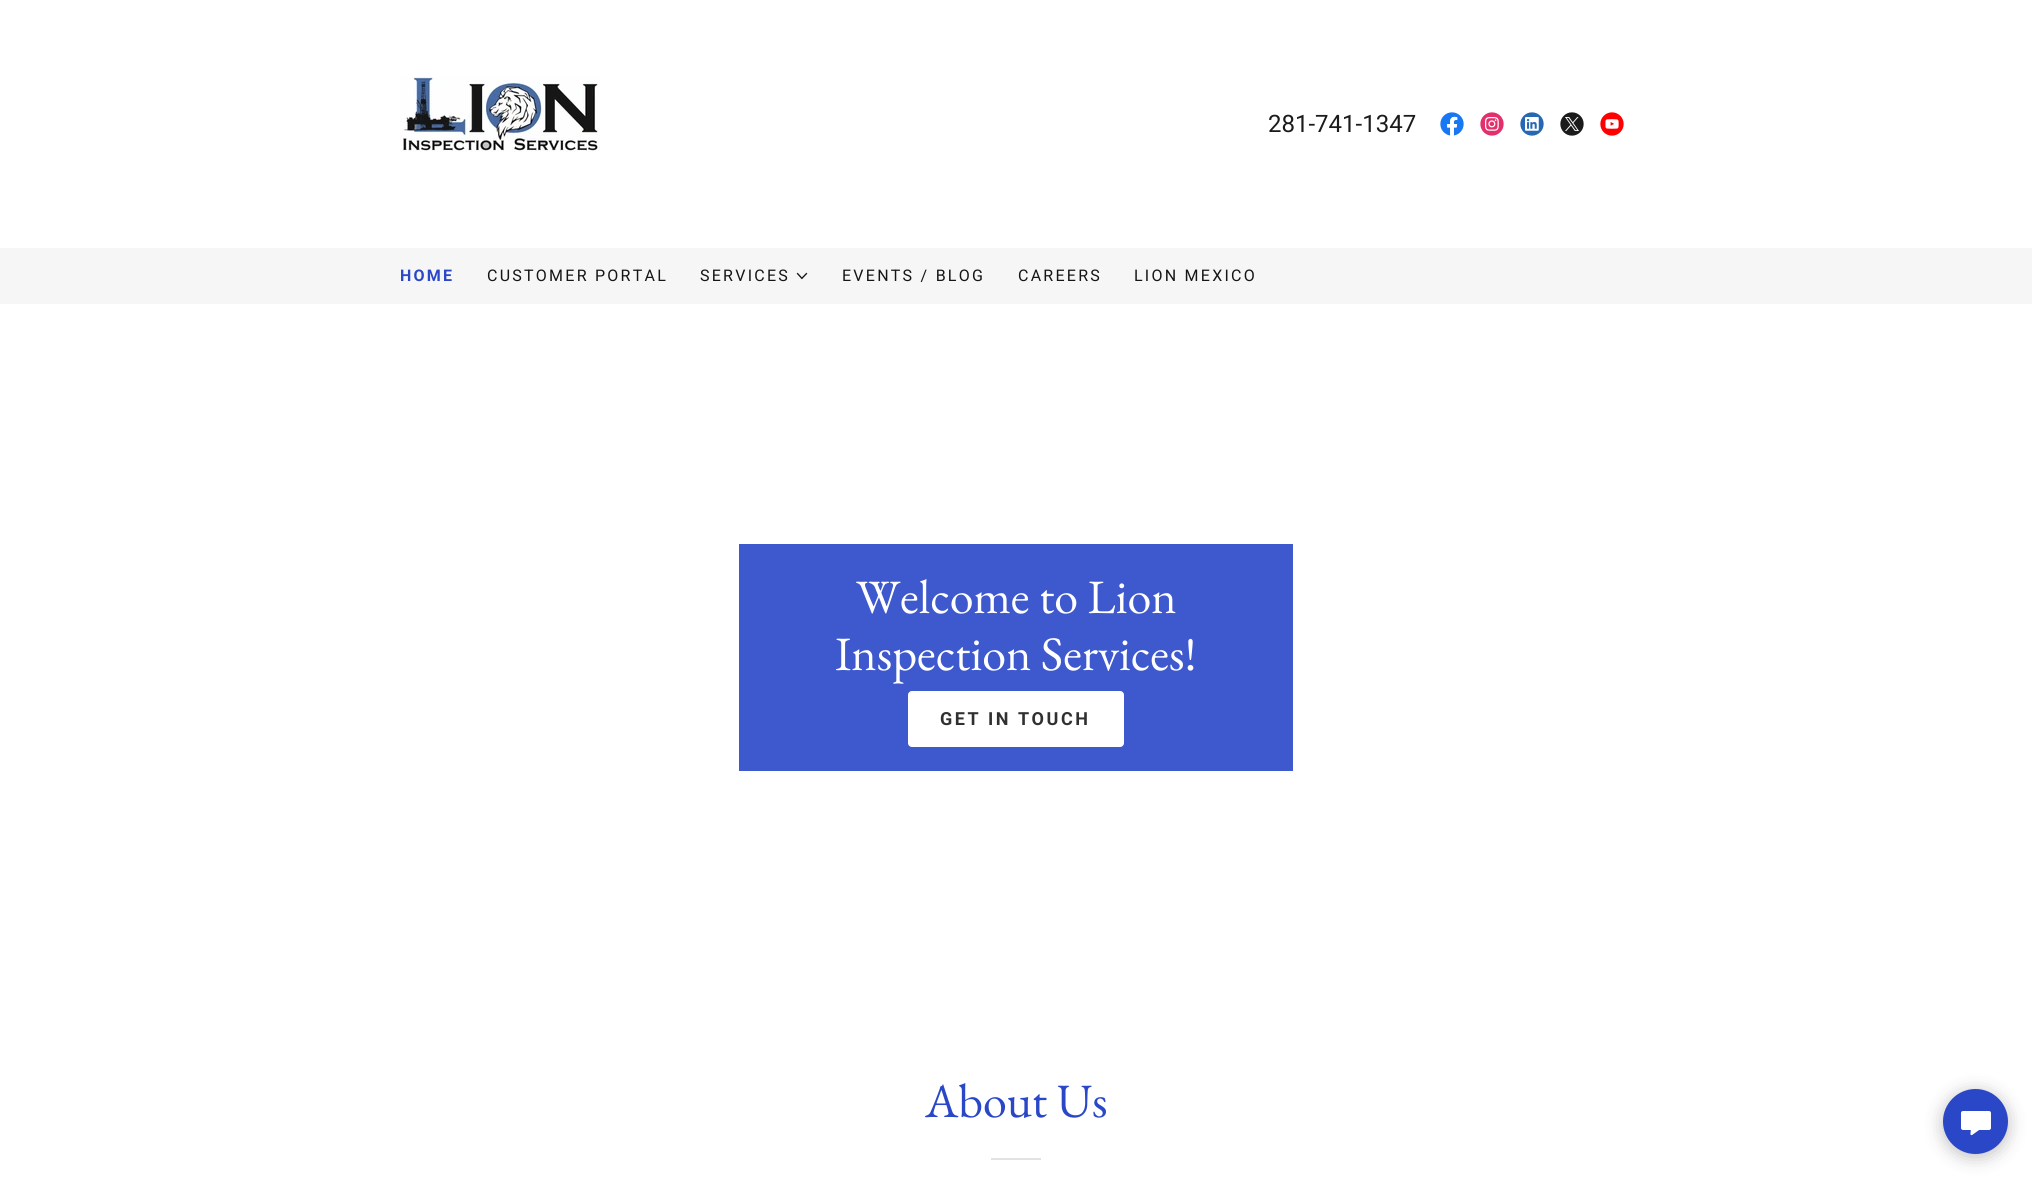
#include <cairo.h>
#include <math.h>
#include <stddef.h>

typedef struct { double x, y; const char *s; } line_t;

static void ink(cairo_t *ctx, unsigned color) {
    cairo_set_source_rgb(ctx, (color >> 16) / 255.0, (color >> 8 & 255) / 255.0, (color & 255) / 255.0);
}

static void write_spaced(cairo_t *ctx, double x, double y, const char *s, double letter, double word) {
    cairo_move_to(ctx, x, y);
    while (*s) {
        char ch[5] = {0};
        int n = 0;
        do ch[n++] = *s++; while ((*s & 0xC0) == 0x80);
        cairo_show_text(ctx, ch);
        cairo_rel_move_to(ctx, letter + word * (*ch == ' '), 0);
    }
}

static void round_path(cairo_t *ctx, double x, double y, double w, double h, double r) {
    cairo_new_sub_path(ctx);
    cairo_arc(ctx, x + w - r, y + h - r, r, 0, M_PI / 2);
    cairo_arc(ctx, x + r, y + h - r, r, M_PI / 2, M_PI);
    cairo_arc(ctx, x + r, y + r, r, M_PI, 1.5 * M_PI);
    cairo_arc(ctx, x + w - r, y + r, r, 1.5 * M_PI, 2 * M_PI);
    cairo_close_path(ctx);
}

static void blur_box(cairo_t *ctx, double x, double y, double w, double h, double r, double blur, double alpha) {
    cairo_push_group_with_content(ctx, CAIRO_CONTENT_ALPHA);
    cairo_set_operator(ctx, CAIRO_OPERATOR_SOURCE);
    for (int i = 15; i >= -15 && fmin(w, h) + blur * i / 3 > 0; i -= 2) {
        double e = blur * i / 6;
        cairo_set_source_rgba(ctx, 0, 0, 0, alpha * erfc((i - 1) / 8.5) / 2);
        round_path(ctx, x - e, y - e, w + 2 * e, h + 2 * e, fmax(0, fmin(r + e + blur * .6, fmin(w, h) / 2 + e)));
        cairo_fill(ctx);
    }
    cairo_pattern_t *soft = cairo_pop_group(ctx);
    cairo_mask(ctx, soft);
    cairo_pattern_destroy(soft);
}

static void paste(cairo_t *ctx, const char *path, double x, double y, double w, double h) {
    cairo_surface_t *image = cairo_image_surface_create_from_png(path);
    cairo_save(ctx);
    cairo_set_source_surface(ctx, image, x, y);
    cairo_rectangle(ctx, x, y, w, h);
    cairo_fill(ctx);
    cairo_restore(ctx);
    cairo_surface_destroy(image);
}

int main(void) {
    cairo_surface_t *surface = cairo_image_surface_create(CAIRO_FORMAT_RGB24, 2032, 1178);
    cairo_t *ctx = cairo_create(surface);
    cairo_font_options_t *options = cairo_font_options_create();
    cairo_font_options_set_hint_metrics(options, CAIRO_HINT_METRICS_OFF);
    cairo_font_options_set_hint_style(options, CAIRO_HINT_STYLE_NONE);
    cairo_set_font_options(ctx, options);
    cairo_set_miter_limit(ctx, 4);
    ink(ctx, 0xFFFFFF);
    cairo_paint(ctx);
    paste(ctx, "media/1.png", 400, 77, 200, 75);
    cairo_select_font_face(ctx, "Roboto", CAIRO_FONT_SLANT_NORMAL, CAIRO_FONT_WEIGHT_NORMAL);
    cairo_set_font_size(ctx, 24);
    ink(ctx, 0x1B1B1B);
    cairo_move_to(ctx, 1268, 132);
    cairo_show_text(ctx, "281-741-1347");
    paste(ctx, "media/2.png", 1440, 112, 24, 24);
    paste(ctx, "media/3.png", 1480, 112, 24, 24);
    paste(ctx, "media/4.png", 1520, 112, 24, 24);
    paste(ctx, "media/5.png", 1560, 112, 24, 24);
    paste(ctx, "media/6.png", 1600, 112, 24, 24);
    ink(ctx, 0xF6F6F6);
    cairo_rectangle(ctx, 0, 248, 2032, 56);
    cairo_fill(ctx);
    cairo_select_font_face(ctx, "Roboto", CAIRO_FONT_SLANT_NORMAL, CAIRO_FONT_WEIGHT_BOLD);
    cairo_set_font_size(ctx, 16);
    ink(ctx, 0x2947C7);
    write_spaced(ctx, 400, 281, "HOME", 2.25, 0);
    cairo_select_font_face(ctx, "Roboto", CAIRO_FONT_SLANT_NORMAL, CAIRO_FONT_WEIGHT_NORMAL);
    ink(ctx, 0x151515);
    write_spaced(ctx, 487, 281, "CUSTOMER PORTAL", 2.25, 0);
    write_spaced(ctx, 700, 281, "SERVICES", 2.25, 0);
    paste(ctx, "media/7.png", 796, 272, 12, 8);
    {
        static const line_t items[] = {
            {842, 281, "EVENTS / BLOG"},
            {1018, 281, "CAREERS"},
            {1134, 281, "LION MEXICO"},
        };
        for (size_t i = 0; i < sizeof items / sizeof *items; i++) {
            write_spaced(ctx, items[i].x, items[i].y, items[i].s, 2.25, 0);
        }
    }
    ink(ctx, 0x3E59CD);
    cairo_rectangle(ctx, 739, 544, 554, 227);
    cairo_fill(ctx);
    cairo_select_font_face(ctx, "EB Garamond", CAIRO_FONT_SLANT_NORMAL, CAIRO_FONT_WEIGHT_NORMAL);
    cairo_set_font_size(ctx, 48);
    ink(ctx, 0xFFFFFF);
    cairo_move_to(ctx, 856, 613);
    cairo_show_text(ctx, "Welcome to Lion");
    cairo_move_to(ctx, 835, 670);
    cairo_show_text(ctx, "Inspection Services!");
    round_path(ctx, 908, 691, 216, 56, 4);
    cairo_fill(ctx);
    cairo_select_font_face(ctx, "Roboto", CAIRO_FONT_SLANT_NORMAL, CAIRO_FONT_WEIGHT_BOLD);
    cairo_set_font_size(ctx, 18);
    ink(ctx, 0x303030);
    write_spaced(ctx, 940, 725, "GET IN TOUCH", 2.5, 0);
    cairo_select_font_face(ctx, "EB Garamond", CAIRO_FONT_SLANT_NORMAL, CAIRO_FONT_WEIGHT_NORMAL);
    cairo_set_font_size(ctx, 48);
    ink(ctx, 0x2947C7);
    cairo_move_to(ctx, 925, 1117);
    cairo_show_text(ctx, "About Us");
    ink(ctx, 0xE2E2E2);
    cairo_rectangle(ctx, 991, 1158, 50, 2);
    cairo_fill(ctx);
    ink(ctx, 0x000000);
    blur_box(ctx, 1943, 1092, 65, 65, 32.5, 9, 0.25);
    ink(ctx, 0x2947C7);
    cairo_arc(ctx, 1975.5, 1121.5, 32.5, 0, 2 * M_PI);
    cairo_fill(ctx);
    paste(ctx, "media/8.png", 1961, 1111, 30, 25);
    cairo_surface_write_to_png(surface, "image.png");
    cairo_font_options_destroy(options);
    cairo_destroy(ctx);
    cairo_surface_destroy(surface);
    return 0;
}
